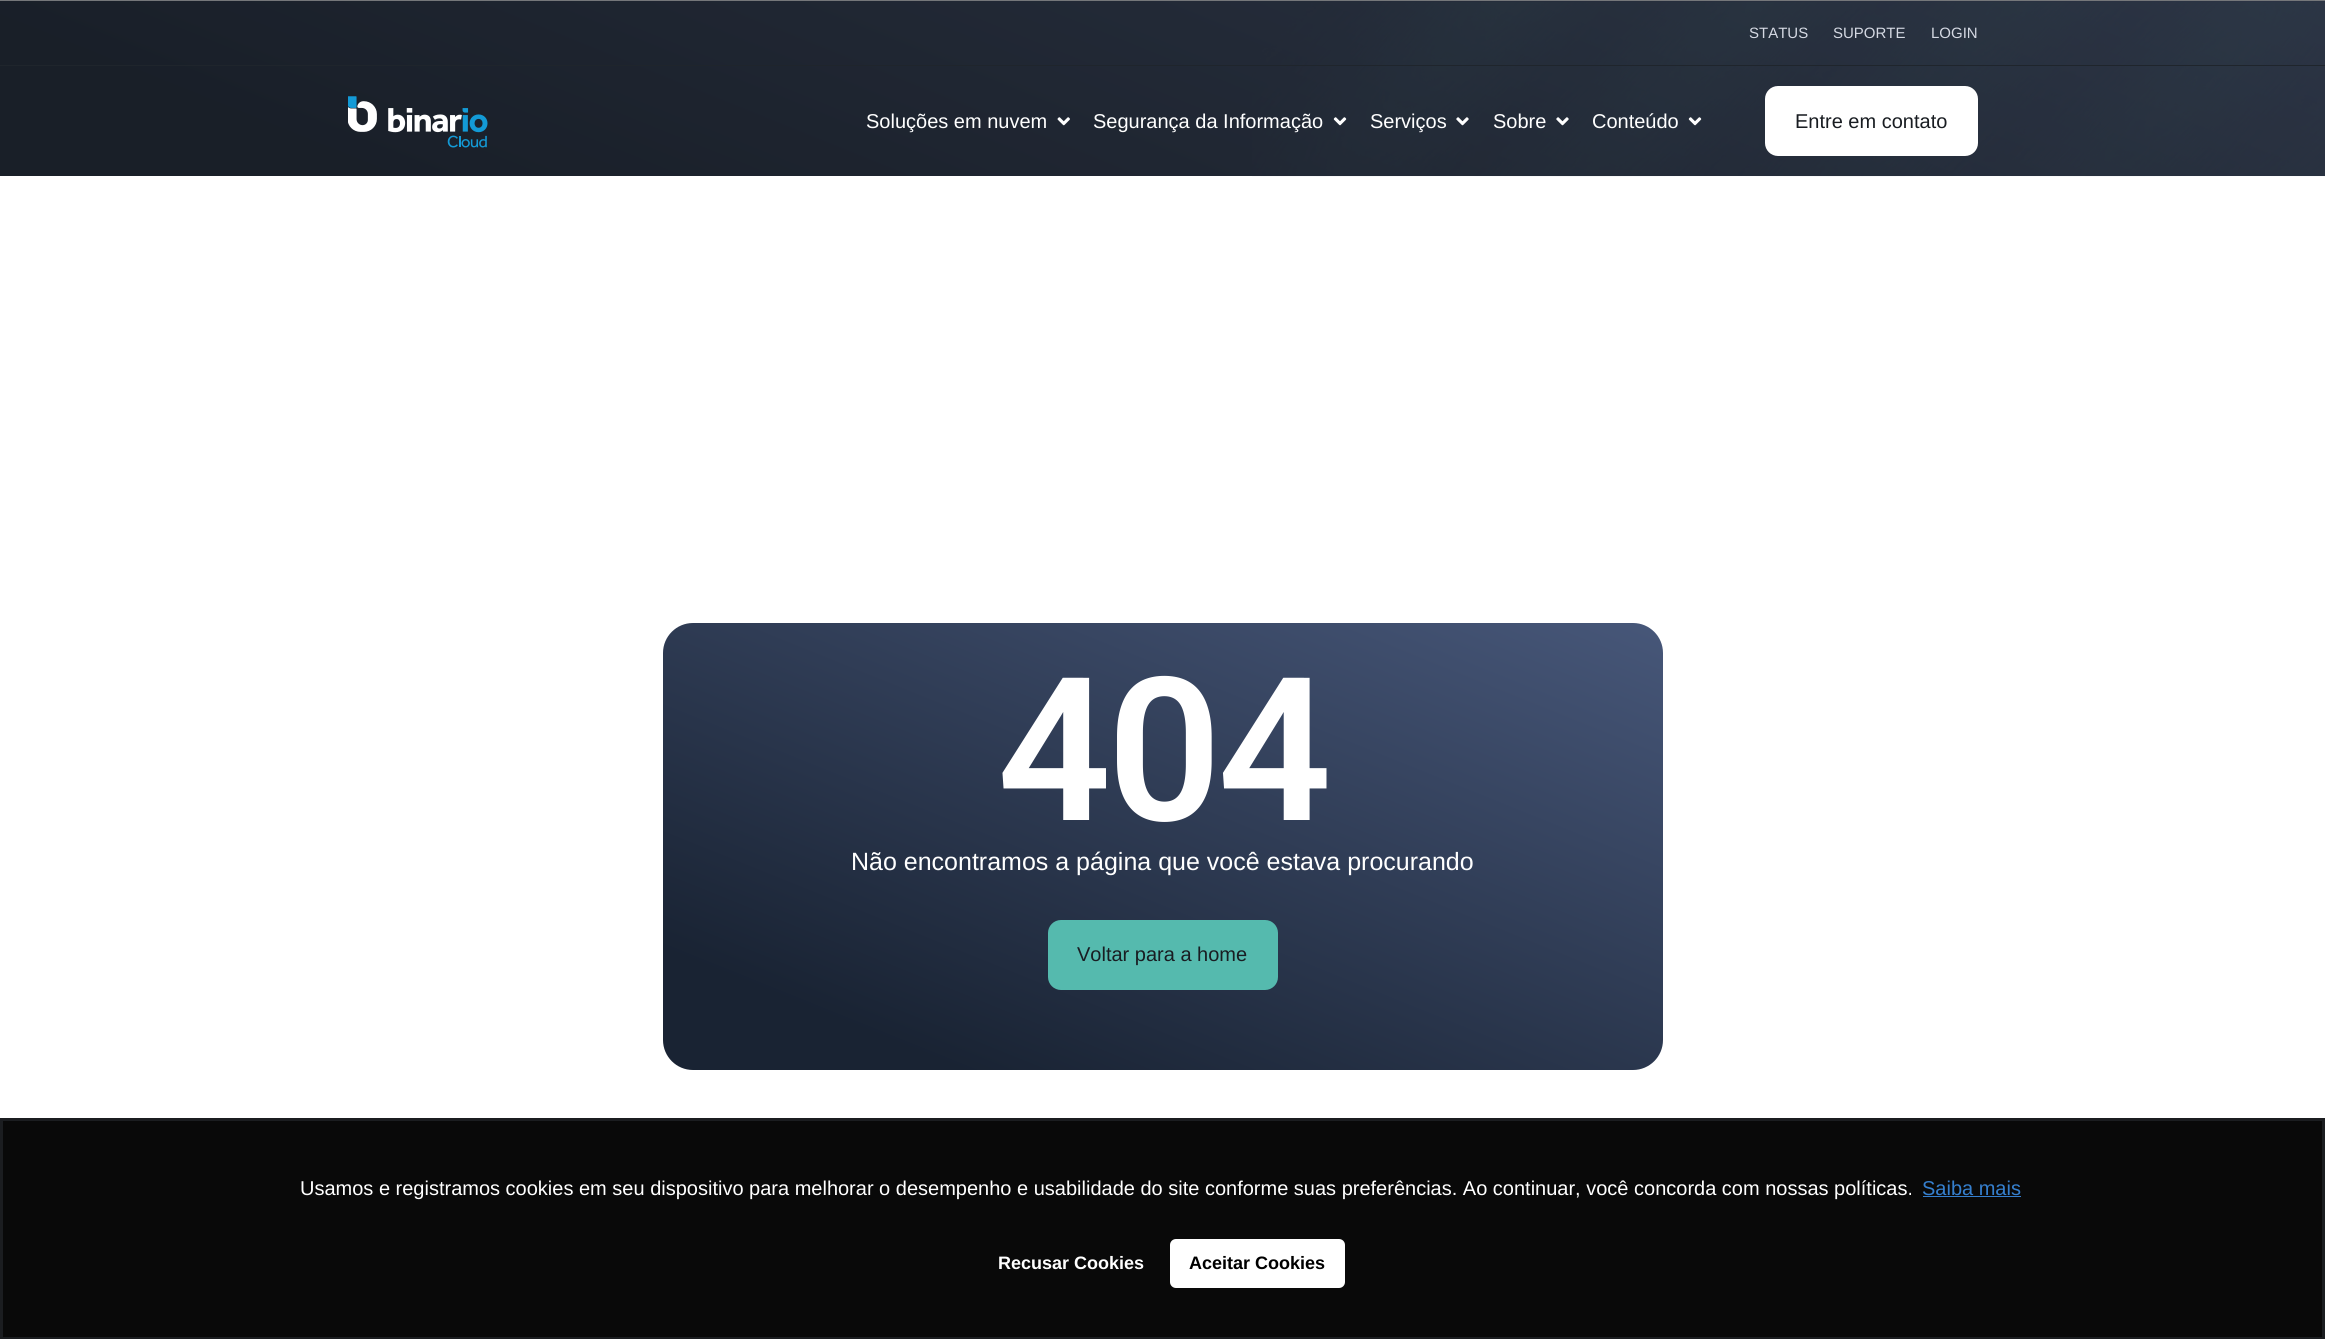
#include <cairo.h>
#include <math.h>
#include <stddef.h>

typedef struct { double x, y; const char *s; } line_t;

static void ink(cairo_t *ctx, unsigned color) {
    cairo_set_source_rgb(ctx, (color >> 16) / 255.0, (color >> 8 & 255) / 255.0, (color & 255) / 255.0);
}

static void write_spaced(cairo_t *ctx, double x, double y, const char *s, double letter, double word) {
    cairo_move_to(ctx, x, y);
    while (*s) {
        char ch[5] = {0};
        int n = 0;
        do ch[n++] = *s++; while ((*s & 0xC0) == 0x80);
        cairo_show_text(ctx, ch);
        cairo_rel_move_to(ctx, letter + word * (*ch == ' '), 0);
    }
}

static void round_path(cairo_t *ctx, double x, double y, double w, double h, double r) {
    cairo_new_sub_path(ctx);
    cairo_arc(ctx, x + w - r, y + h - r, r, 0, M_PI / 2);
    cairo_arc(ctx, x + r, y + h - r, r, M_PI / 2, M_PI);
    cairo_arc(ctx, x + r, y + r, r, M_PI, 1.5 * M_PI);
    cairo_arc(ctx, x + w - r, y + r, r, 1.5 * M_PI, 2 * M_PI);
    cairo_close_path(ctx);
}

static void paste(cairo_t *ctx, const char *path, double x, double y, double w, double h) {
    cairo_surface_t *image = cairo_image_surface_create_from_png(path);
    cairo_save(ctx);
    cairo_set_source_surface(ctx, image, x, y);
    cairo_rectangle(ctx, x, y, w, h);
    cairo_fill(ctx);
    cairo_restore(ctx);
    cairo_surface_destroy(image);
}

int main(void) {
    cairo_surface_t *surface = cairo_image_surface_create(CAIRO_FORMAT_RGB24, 2325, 1339);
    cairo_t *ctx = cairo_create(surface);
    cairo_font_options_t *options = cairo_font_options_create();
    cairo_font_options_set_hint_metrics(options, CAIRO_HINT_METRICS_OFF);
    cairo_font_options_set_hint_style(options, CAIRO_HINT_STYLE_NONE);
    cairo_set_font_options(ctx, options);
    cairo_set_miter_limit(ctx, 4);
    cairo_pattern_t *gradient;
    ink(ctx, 0xFFFFFF);
    cairo_paint(ctx);
    gradient = cairo_pattern_create_linear(969, 568, 1356, -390);
    cairo_pattern_add_color_stop_rgba(gradient, 0.14, 0.098, 0.137, 0.2, 1);
    cairo_pattern_add_color_stop_rgba(gradient, 1, 0.278, 0.341, 0.475, 1);
    cairo_set_source(ctx, gradient);
    cairo_pattern_destroy(gradient);
    cairo_rectangle(ctx, 0, 1, 2325, 175);
    cairo_fill(ctx);
    paste(ctx, "media/7.png", 1252, 2, 1073, 175);
    cairo_set_source_rgba(ctx, 0.098, 0.114, 0.133, 0.6);
    cairo_rectangle(ctx, 0, 0, 2325, 65);
    cairo_fill(ctx);
    ink(ctx, 0x1F252C);
    cairo_rectangle(ctx, 0, 65, 2325, 1);
    cairo_fill(ctx);
    cairo_select_font_face(ctx, "Liberation Sans", CAIRO_FONT_SLANT_NORMAL, CAIRO_FONT_WEIGHT_NORMAL);
    cairo_set_font_size(ctx, 15);
    ink(ctx, 0xD5D9E3);
    {
        static const line_t items[] = {
            {1749, 38, "STATUS"},
            {1833, 38, "SUPORTE"},
            {1931, 38, "LOGIN"},
        };
        for (size_t i = 0; i < sizeof items / sizeof *items; i++) {
            cairo_move_to(ctx, items[i].x, items[i].y);
            cairo_show_text(ctx, items[i].s);
        }
    }
    cairo_set_source_rgba(ctx, 0.098, 0.114, 0.133, 0.6);
    cairo_rectangle(ctx, 0, 66, 2325, 110);
    cairo_fill(ctx);
    paste(ctx, "media/1.png", 348, 96, 140, 52);
    cairo_set_font_size(ctx, 20);
    ink(ctx, 0xFFFFFF);
    cairo_move_to(ctx, 866, 128);
    cairo_show_text(ctx, "Soluções em nuvem");
    paste(ctx, "media/2.png", 1057, 117, 13, 9);
    cairo_move_to(ctx, 1093, 128);
    cairo_show_text(ctx, "Segurança da Informação");
    paste(ctx, "media/3.png", 1333, 117, 14, 9);
    cairo_move_to(ctx, 1370, 128);
    cairo_show_text(ctx, "Serviços");
    paste(ctx, "media/4.png", 1456, 117, 13, 9);
    cairo_move_to(ctx, 1493, 128);
    cairo_show_text(ctx, "Sobre");
    paste(ctx, "media/5.png", 1556, 117, 13, 9);
    cairo_move_to(ctx, 1592, 128);
    cairo_show_text(ctx, "Conteúdo");
    paste(ctx, "media/6.png", 1688, 117, 14, 9);
    round_path(ctx, 1765, 86, 213, 70, 13);
    cairo_fill(ctx);
    ink(ctx, 0x191D22);
    cairo_move_to(ctx, 1795, 128);
    cairo_show_text(ctx, "Entre em contato");
    gradient = cairo_pattern_create_linear(1015, 1212, 1310, 480);
    cairo_pattern_add_color_stop_rgba(gradient, 0.14, 0.098, 0.137, 0.2, 1);
    cairo_pattern_add_color_stop_rgba(gradient, 1, 0.278, 0.341, 0.475, 1);
    cairo_set_source(ctx, gradient);
    cairo_pattern_destroy(gradient);
    round_path(ctx, 663, 623, 1000, 447, 30);
    cairo_fill(ctx);
    cairo_select_font_face(ctx, "Roboto SemiBold", CAIRO_FONT_SLANT_NORMAL, CAIRO_FONT_WEIGHT_NORMAL);
    cairo_set_font_size(ctx, 200);
    ink(ctx, 0xFFFFFF);
    write_spaced(ctx, 997, 820, "404", -4, 0);
    cairo_select_font_face(ctx, "Liberation Sans", CAIRO_FONT_SLANT_NORMAL, CAIRO_FONT_WEIGHT_NORMAL);
    cairo_set_font_size(ctx, 25);
    cairo_move_to(ctx, 851, 870);
    cairo_show_text(ctx, "Não encontramos a página que você estava procurando");
    ink(ctx, 0x55BAAE);
    round_path(ctx, 1048, 920, 230, 70, 13);
    cairo_fill(ctx);
    cairo_set_font_size(ctx, 20);
    ink(ctx, 0x191D22);
    cairo_move_to(ctx, 1077, 961);
    cairo_show_text(ctx, "Voltar para a home");
    ink(ctx, 0x090909);
    cairo_rectangle(ctx, 1.5, 1119.5, 2322, 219);
    cairo_fill_preserve(ctx);
    ink(ctx, 0x1B1D20);
    cairo_set_line_width(ctx, 3);
    cairo_stroke(ctx);
    ink(ctx, 0xFFFFFF);
    cairo_move_to(ctx, 300, 1195);
    cairo_show_text(ctx, "Usamos e registramos cookies em seu dispositivo para melhorar o desempenho e usabilidade do site conforme suas preferências. Ao continuar, você concorda com nossas políticas.");
    ink(ctx, 0x357FCE);
    cairo_move_to(ctx, 1922, 1195);
    cairo_show_text(ctx, "Saiba mais");
    cairo_rectangle(ctx, 1923, 1196, 98, 1);
    cairo_fill(ctx);
    cairo_select_font_face(ctx, "Liberation Sans", CAIRO_FONT_SLANT_NORMAL, CAIRO_FONT_WEIGHT_BOLD);
    cairo_set_font_size(ctx, 18);
    ink(ctx, 0xFFFFFF);
    cairo_move_to(ctx, 998, 1269);
    cairo_show_text(ctx, "Recusar Cookies");
    round_path(ctx, 1170, 1239, 175, 49, 6);
    cairo_fill(ctx);
    ink(ctx, 0x000000);
    cairo_move_to(ctx, 1189, 1269);
    cairo_show_text(ctx, "Aceitar Cookies");
    cairo_surface_write_to_png(surface, "image.png");
    cairo_font_options_destroy(options);
    cairo_destroy(ctx);
    cairo_surface_destroy(surface);
    return 0;
}
